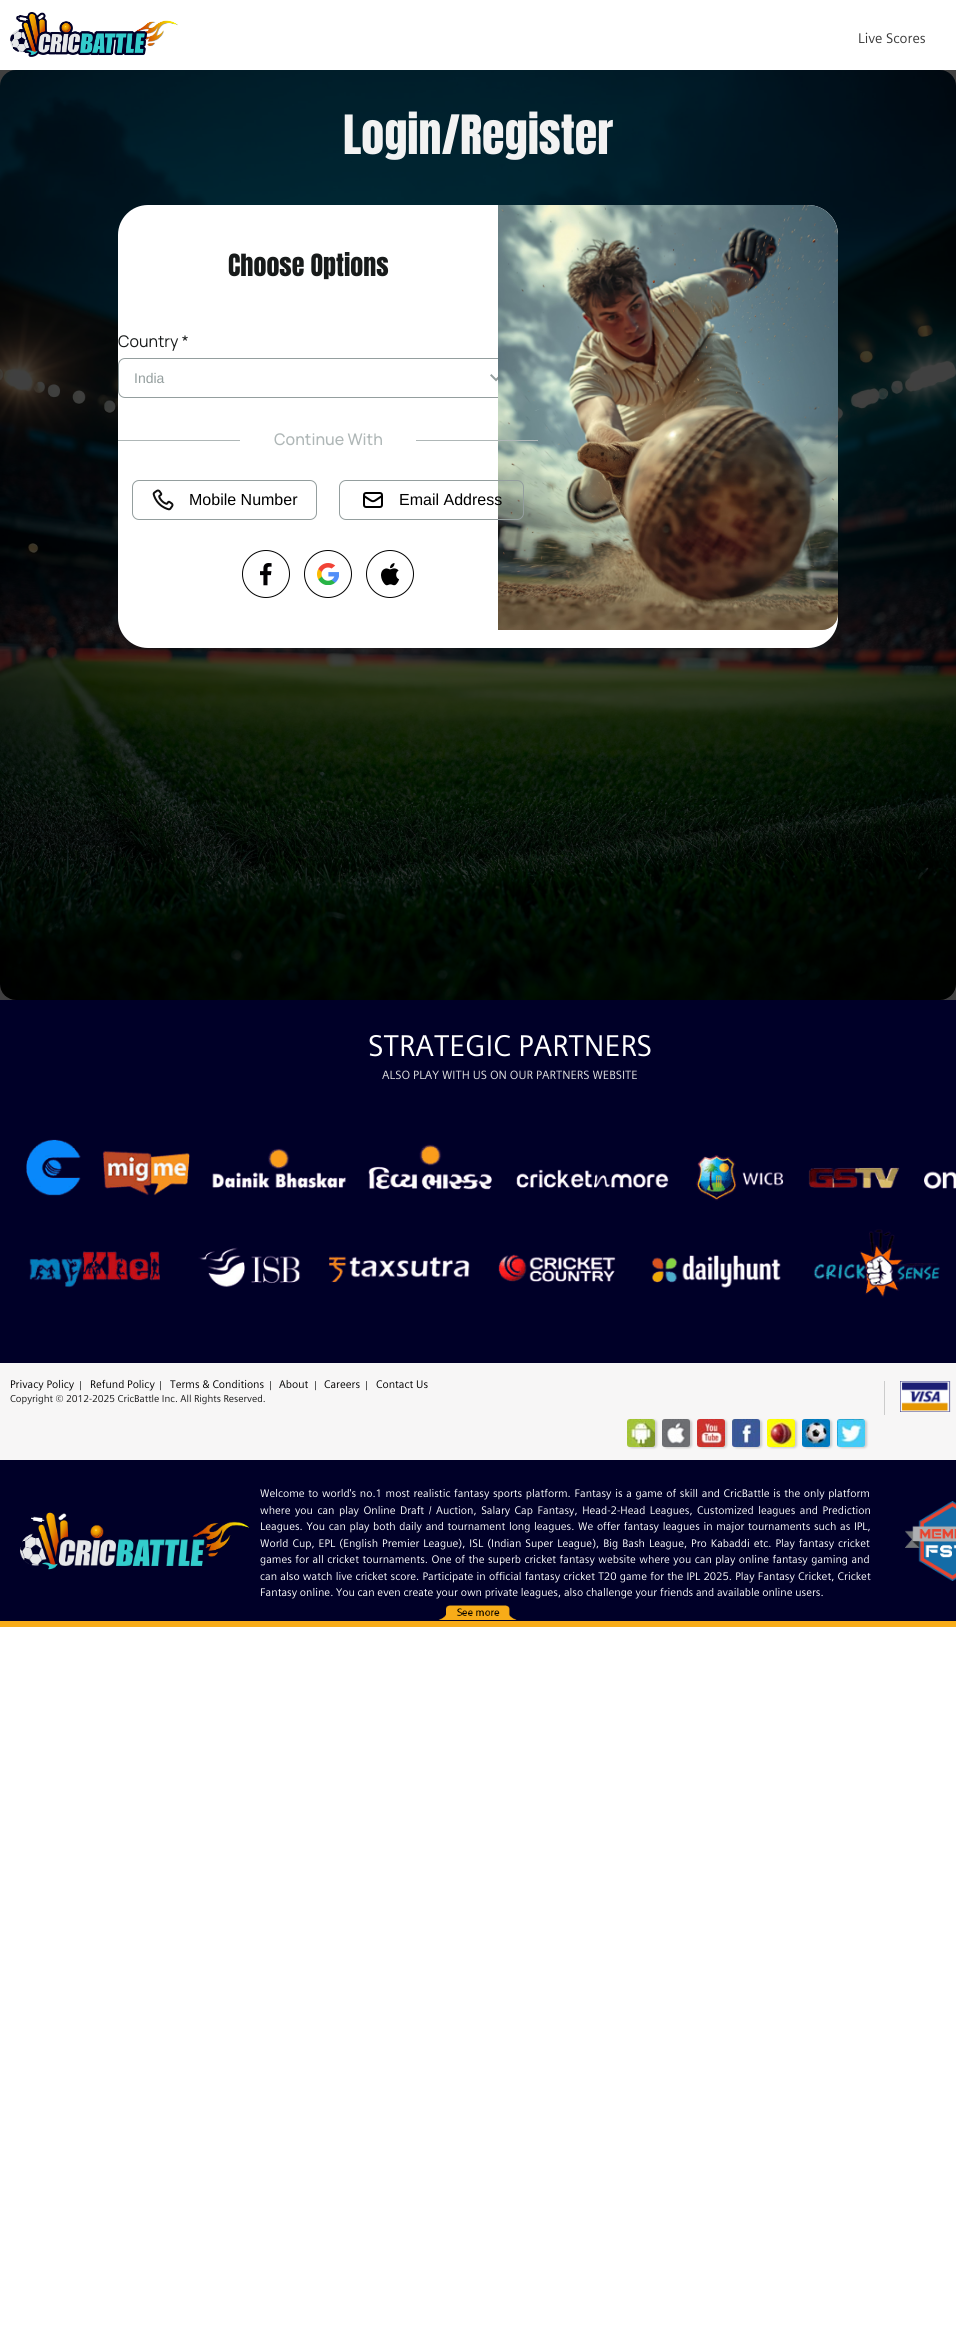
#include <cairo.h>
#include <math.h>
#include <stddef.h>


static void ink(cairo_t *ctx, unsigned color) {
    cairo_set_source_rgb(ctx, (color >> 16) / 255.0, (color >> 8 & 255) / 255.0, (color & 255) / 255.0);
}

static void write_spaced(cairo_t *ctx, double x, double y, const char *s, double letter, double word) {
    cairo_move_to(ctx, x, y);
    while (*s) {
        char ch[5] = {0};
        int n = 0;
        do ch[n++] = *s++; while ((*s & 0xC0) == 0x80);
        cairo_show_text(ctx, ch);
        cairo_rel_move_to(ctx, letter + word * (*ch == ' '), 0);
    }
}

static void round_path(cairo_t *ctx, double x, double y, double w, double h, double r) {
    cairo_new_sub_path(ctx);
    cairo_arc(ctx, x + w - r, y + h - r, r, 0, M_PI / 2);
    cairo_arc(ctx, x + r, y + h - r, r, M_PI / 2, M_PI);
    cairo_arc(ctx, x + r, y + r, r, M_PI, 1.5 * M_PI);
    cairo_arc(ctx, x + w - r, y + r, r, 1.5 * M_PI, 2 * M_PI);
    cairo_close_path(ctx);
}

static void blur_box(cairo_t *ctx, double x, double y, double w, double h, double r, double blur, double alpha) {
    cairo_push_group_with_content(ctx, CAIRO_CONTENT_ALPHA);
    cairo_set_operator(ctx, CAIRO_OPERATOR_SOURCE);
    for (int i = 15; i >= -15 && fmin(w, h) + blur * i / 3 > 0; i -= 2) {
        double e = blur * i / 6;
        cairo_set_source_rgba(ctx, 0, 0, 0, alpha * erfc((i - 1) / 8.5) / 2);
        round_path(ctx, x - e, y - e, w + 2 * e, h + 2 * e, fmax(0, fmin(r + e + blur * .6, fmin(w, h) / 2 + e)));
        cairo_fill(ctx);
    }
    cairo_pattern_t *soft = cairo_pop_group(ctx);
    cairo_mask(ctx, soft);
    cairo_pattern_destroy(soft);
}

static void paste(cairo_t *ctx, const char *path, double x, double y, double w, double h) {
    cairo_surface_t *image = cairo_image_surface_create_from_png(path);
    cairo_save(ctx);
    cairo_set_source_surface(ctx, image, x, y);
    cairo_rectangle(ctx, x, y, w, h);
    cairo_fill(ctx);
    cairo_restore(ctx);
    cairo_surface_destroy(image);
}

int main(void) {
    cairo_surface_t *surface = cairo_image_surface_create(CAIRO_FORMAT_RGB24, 956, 2333);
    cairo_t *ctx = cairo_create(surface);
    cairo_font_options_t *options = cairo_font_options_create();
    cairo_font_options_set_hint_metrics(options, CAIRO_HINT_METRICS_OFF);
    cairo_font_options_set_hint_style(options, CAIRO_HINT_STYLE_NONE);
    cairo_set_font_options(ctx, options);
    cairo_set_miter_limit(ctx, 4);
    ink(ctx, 0xFFFFFF);
    cairo_paint(ctx);
    ink(ctx, 0x404040);
    cairo_rectangle(ctx, 0, 70, 956, 930);
    cairo_fill(ctx);
    paste(ctx, "media/1.png", 10, 12, 168, 45);
    cairo_select_font_face(ctx, "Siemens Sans", CAIRO_FONT_SLANT_NORMAL, CAIRO_FONT_WEIGHT_NORMAL);
    cairo_set_font_size(ctx, 14);
    ink(ctx, 0x393939);
    cairo_move_to(ctx, 858, 43);
    cairo_show_text(ctx, "Live Scores");
    paste(ctx, "media/2.png", 0, 70, 956, 930);
    cairo_select_font_face(ctx, "Anton", CAIRO_FONT_SLANT_NORMAL, CAIRO_FONT_WEIGHT_NORMAL);
    cairo_set_font_size(ctx, 46);
    ink(ctx, 0xF2F2F2);
    cairo_move_to(ctx, 343, 154);
    cairo_show_text(ctx, "Login/Register");
    ink(ctx, 0xFFFFFF);
    round_path(ctx, 118, 205, 720, 443, 30);
    cairo_fill(ctx);
    cairo_set_font_size(ctx, 26);
    ink(ctx, 0x181B1B);
    cairo_move_to(ctx, 228, 276);
    cairo_show_text(ctx, "Choose Options");
    cairo_select_font_face(ctx, "Manrope ExtraLight", CAIRO_FONT_SLANT_NORMAL, CAIRO_FONT_WEIGHT_NORMAL);
    cairo_set_font_size(ctx, 16);
    cairo_move_to(ctx, 118, 347);
    cairo_show_text(ctx, "Country *");
    paste(ctx, "media/3.png", 490, 374, 8, 8);
    round_path(ctx, 118.5, 358.5, 399, 39, 6.5);
    ink(ctx, 0x949E9E);
    cairo_set_line_width(ctx, 1);
    cairo_stroke(ctx);
    cairo_select_font_face(ctx, "Liberation Sans", CAIRO_FONT_SLANT_NORMAL, CAIRO_FONT_WEIGHT_NORMAL);
    cairo_set_font_size(ctx, 14);
    cairo_move_to(ctx, 134, 383);
    cairo_show_text(ctx, "India");
    ink(ctx, 0xAFB7B7);
    cairo_rectangle(ctx, 118, 440, 122, 1);
    cairo_fill(ctx);
    cairo_select_font_face(ctx, "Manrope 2 ExtraLight", CAIRO_FONT_SLANT_NORMAL, CAIRO_FONT_WEIGHT_NORMAL);
    cairo_set_font_size(ctx, 16);
    cairo_move_to(ctx, 274, 445);
    cairo_show_text(ctx, "Continue With");
    paste(ctx, "media/9.png", 498, 205, 340, 425);
    cairo_rectangle(ctx, 416, 440, 122, 1);
    cairo_fill(ctx);
    round_path(ctx, 132.5, 480.5, 184, 39, 6.5);
    ink(ctx, 0x949E9E);
    cairo_stroke(ctx);
    paste(ctx, "media/4.png", 152, 489, 22, 22);
    cairo_select_font_face(ctx, "Liberation Sans", CAIRO_FONT_SLANT_NORMAL, CAIRO_FONT_WEIGHT_NORMAL);
    ink(ctx, 0x000000);
    cairo_move_to(ctx, 189, 505);
    cairo_show_text(ctx, "Mobile Number");
    round_path(ctx, 339.5, 480.5, 184, 39, 6.5);
    ink(ctx, 0x949E9E);
    cairo_stroke(ctx);
    paste(ctx, "media/5.png", 363, 492, 20, 16);
    ink(ctx, 0x000000);
    cairo_move_to(ctx, 399, 505);
    cairo_show_text(ctx, "Email Address");
    cairo_new_path(ctx);
    cairo_arc(ctx, 266, 574, 23.5, 0, 2 * M_PI);
    cairo_stroke(ctx);
    paste(ctx, "media/6.png", 260, 563, 12, 23);
    cairo_arc(ctx, 328, 574, 23.5, 0, 2 * M_PI);
    cairo_stroke(ctx);
    paste(ctx, "media/7.png", 317, 563, 22, 22);
    cairo_arc(ctx, 390, 574, 23.5, 0, 2 * M_PI);
    cairo_stroke(ctx);
    paste(ctx, "media/8.png", 381, 563, 19, 23);
    ink(ctx, 0x000028);
    cairo_rectangle(ctx, 0, 1000, 956, 621);
    cairo_fill(ctx);
    cairo_select_font_face(ctx, "Siemens Sans", CAIRO_FONT_SLANT_NORMAL, CAIRO_FONT_WEIGHT_NORMAL);
    cairo_set_font_size(ctx, 30);
    ink(ctx, 0xFFFFFF);
    cairo_move_to(ctx, 368, 1056);
    cairo_show_text(ctx, "STRATEGIC PARTNERS");
    cairo_set_font_size(ctx, 12);
    ink(ctx, 0xE1E1E1);
    cairo_move_to(ctx, 382, 1079);
    cairo_show_text(ctx, "ALSO PLAY WITH US ON OUR PARTNERS WEBSITE");
    paste(ctx, "media/10.png", 26, 1139, 930, 159);
    ink(ctx, 0xF7F6F6);
    cairo_rectangle(ctx, 0, 1363, 956, 97);
    cairo_fill(ctx);
    cairo_set_font_size(ctx, 11);
    ink(ctx, 0x000000);
    cairo_move_to(ctx, 10, 1388);
    cairo_show_text(ctx, "Privacy Policy");
    cairo_set_font_size(ctx, 10);
    ink(ctx, 0x333333);
    cairo_move_to(ctx, 79, 1388);
    cairo_show_text(ctx, "|");
    cairo_set_font_size(ctx, 11);
    ink(ctx, 0x000000);
    cairo_move_to(ctx, 90, 1388);
    cairo_show_text(ctx, "Refund Policy");
    cairo_set_font_size(ctx, 10);
    ink(ctx, 0x333333);
    cairo_move_to(ctx, 159, 1388);
    cairo_show_text(ctx, "|");
    cairo_set_font_size(ctx, 11);
    ink(ctx, 0x000000);
    cairo_move_to(ctx, 170, 1388);
    cairo_show_text(ctx, "Terms & Conditions");
    cairo_set_font_size(ctx, 10);
    ink(ctx, 0x333333);
    cairo_move_to(ctx, 269, 1388);
    cairo_show_text(ctx, "|");
    cairo_set_font_size(ctx, 11);
    ink(ctx, 0x000000);
    cairo_move_to(ctx, 279, 1388);
    cairo_show_text(ctx, "About");
    cairo_set_font_size(ctx, 10);
    ink(ctx, 0x333333);
    cairo_move_to(ctx, 314, 1388);
    cairo_show_text(ctx, "|");
    cairo_set_font_size(ctx, 11);
    ink(ctx, 0x000000);
    cairo_move_to(ctx, 324, 1388);
    cairo_show_text(ctx, "Careers");
    cairo_set_font_size(ctx, 10);
    ink(ctx, 0x333333);
    cairo_move_to(ctx, 365, 1388);
    cairo_show_text(ctx, "|");
    cairo_set_font_size(ctx, 11);
    ink(ctx, 0x000000);
    cairo_move_to(ctx, 376, 1388);
    cairo_show_text(ctx, "Contact Us");
    cairo_set_font_size(ctx, 10);
    ink(ctx, 0x151515);
    cairo_move_to(ctx, 10, 1402);
    cairo_show_text(ctx, "Copyright © 2012-2025 CricBattle Inc. All Rights Reserved.");
    ink(ctx, 0xCCCCCC);
    cairo_rectangle(ctx, 884, 1381, 1, 34);
    cairo_fill(ctx);
    paste(ctx, "media/11.png", 900, 1381, 51, 31);
    ink(ctx, 0xCCCCCC);
    blur_box(ctx, 629, 1420, 28, 28, 3, 1, 1);
    paste(ctx, "media/12.png", 627, 1419, 28, 28);
    blur_box(ctx, 664, 1420, 28, 28, 3, 1, 1);
    paste(ctx, "media/13.png", 662, 1419, 28, 28);
    blur_box(ctx, 699, 1420, 28, 28, 3, 1, 1);
    paste(ctx, "media/14.png", 697, 1419, 28, 28);
    blur_box(ctx, 734, 1420, 28, 28, 3, 1, 1);
    paste(ctx, "media/15.png", 732, 1419, 28, 28);
    blur_box(ctx, 769, 1420, 28, 28, 3, 1, 1);
    paste(ctx, "media/16.png", 767, 1419, 28, 28);
    blur_box(ctx, 804, 1420, 28, 28, 3, 1, 1);
    paste(ctx, "media/17.png", 802, 1419, 28, 28);
    blur_box(ctx, 839, 1420, 28, 28, 3, 1, 1);
    paste(ctx, "media/18.png", 837, 1419, 28, 28);
    paste(ctx, "media/19.png", 20, 1512, 230, 58);
    cairo_set_font_size(ctx, 11);
    ink(ctx, 0xFFFFFF);
    write_spaced(ctx, 260, 1497, "Welcome to world's no.1 most realistic fantasy sports platform. Fantasy is a game of skill and CricBattle is the only platform", 0, 0.9);
    write_spaced(ctx, 260, 1514, "where you can play Online Draft / Auction, Salary Cap Fantasy, Head-2-Head Leagues, Customized leagues and Prediction", 0, 1.75);
    write_spaced(ctx, 260, 1530, "Leagues. You can play both daily and tournament long leagues. We offer fantasy leagues in major tournaments such as IPL,", 0, 0.9);
    write_spaced(ctx, 260, 1547, "World Cup, EPL (English Premier League), ISL (Indian Super League), Big Bash League, Pro Kabaddi etc. Play fantasy cricket", 0, 1.25);
    write_spaced(ctx, 260, 1563, "games for all cricket tournaments. One of the superb cricket fantasy website where you can play online fantasy gaming and", 0, 0.75);
    write_spaced(ctx, 260, 1580, "can also watch live cricket score. Participate in official fantasy cricket T20 game for the IPL 2025. Play Fantasy Cricket, Cricket", 0, 0.5);
    cairo_move_to(ctx, 260, 1596);
    cairo_show_text(ctx, "Fantasy online. You can even create your own private leagues, also challenge your friends and available online users.");
    paste(ctx, "media/20.png", 905, 1501, 51, 80);
    ink(ctx, 0xF8AC18);
    cairo_rectangle(ctx, 0, 1621, 956, 6);
    cairo_fill(ctx);
    paste(ctx, "media/21.png", 438, 1605, 79, 15);
    cairo_surface_write_to_png(surface, "image.png");
    cairo_font_options_destroy(options);
    cairo_destroy(ctx);
    cairo_surface_destroy(surface);
    return 0;
}
